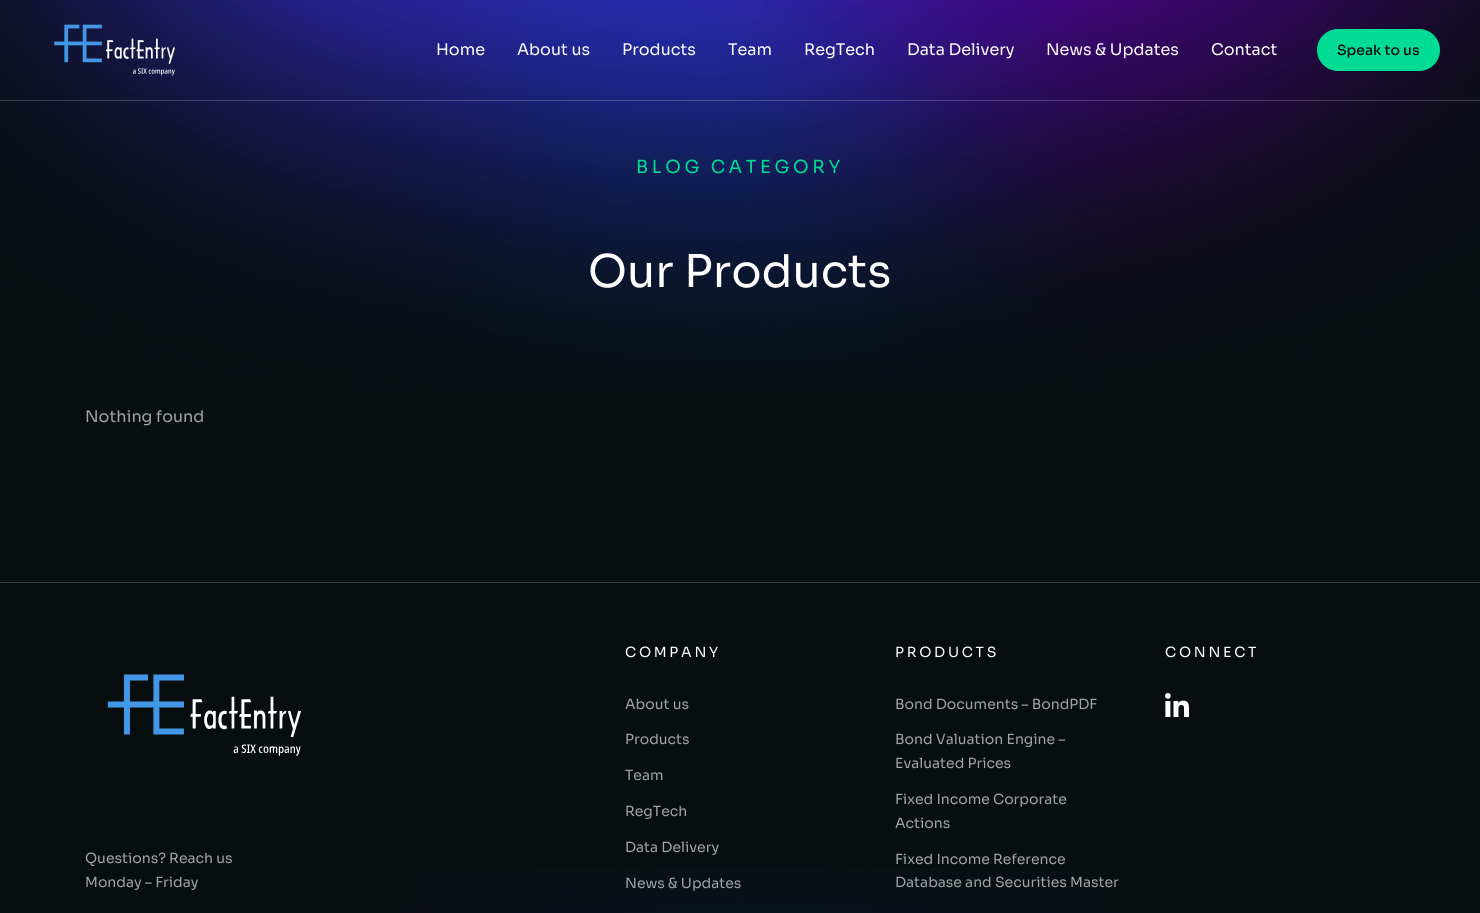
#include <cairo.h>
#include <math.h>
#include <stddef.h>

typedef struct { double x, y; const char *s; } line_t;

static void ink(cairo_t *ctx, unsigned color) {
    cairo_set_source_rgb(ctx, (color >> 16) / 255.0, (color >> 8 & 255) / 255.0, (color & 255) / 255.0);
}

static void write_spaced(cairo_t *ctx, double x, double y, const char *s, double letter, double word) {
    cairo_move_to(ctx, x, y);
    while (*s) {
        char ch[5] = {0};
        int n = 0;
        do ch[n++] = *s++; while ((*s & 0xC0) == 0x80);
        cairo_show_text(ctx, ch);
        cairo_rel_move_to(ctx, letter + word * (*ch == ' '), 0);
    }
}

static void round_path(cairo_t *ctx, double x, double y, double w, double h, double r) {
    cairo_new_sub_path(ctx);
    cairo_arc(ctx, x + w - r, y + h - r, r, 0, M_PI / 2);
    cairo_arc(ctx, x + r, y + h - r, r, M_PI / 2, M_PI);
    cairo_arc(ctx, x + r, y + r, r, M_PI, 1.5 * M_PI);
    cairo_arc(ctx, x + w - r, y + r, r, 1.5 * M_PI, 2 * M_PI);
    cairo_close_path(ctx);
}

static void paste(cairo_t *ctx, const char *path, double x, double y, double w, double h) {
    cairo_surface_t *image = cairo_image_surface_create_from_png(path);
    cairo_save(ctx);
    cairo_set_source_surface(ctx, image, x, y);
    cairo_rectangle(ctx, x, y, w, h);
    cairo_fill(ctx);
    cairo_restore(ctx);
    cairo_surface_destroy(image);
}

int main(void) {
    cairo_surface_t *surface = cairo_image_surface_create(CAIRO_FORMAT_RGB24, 1480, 913);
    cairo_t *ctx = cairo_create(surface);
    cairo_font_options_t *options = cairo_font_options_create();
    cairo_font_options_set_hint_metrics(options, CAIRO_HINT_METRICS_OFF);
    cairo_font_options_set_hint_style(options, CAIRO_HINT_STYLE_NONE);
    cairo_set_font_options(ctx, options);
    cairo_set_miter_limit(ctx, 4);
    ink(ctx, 0x080E10);
    cairo_paint(ctx);
    paste(ctx, "media/1.png", 0, 0, 1480, 393);
    cairo_set_source_rgba(ctx, 1, 1, 1, 0.2);
    cairo_rectangle(ctx, 0, 100, 1480, 1);
    cairo_fill(ctx);
    paste(ctx, "media/2.png", 54, 24, 121, 52);
    cairo_select_font_face(ctx, "Sora", CAIRO_FONT_SLANT_NORMAL, CAIRO_FONT_WEIGHT_NORMAL);
    cairo_set_font_size(ctx, 16);
    ink(ctx, 0xFFFFFF);
    {
        static const line_t items[] = {
            {436, 55, "Home"},
            {517, 55, "About us"},
            {622, 55, "Products"},
            {728, 55, "Team"},
            {804, 55, "RegTech"},
            {907, 55, "Data Delivery"},
            {1046, 55, "News & Updates"},
            {1211, 55, "Contact"},
        };
        for (size_t i = 0; i < sizeof items / sizeof *items; i++) {
            cairo_move_to(ctx, items[i].x, items[i].y);
            cairo_show_text(ctx, items[i].s);
        }
    }
    ink(ctx, 0x00DC93);
    round_path(ctx, 1317, 29, 123, 42, 21);
    cairo_fill(ctx);
    cairo_select_font_face(ctx, "Sora Medium", CAIRO_FONT_SLANT_NORMAL, CAIRO_FONT_WEIGHT_NORMAL);
    cairo_set_font_size(ctx, 14);
    ink(ctx, 0x080E10);
    cairo_move_to(ctx, 1337, 55);
    cairo_show_text(ctx, "Speak to us");
    cairo_select_font_face(ctx, "Sora", CAIRO_FONT_SLANT_NORMAL, CAIRO_FONT_WEIGHT_NORMAL);
    cairo_set_font_size(ctx, 18);
    ink(ctx, 0x00DC93);
    write_spaced(ctx, 636, 173, "BLOG CATEGORY", 3.6, 0);
    cairo_set_font_size(ctx, 45);
    ink(ctx, 0xFFFFFF);
    cairo_move_to(ctx, 588, 287);
    cairo_show_text(ctx, "Our Products");
    cairo_set_font_size(ctx, 16);
    ink(ctx, 0xA1A4A5);
    cairo_move_to(ctx, 85, 422);
    cairo_show_text(ctx, "Nothing found");
    paste(ctx, "media/3.png", 405, 868, 706, 45);
    ink(ctx, 0x393E40);
    cairo_rectangle(ctx, 0, 582, 1480, 1);
    cairo_fill(ctx);
    cairo_set_font_size(ctx, 14);
    ink(ctx, 0xFFFFFF);
    write_spaced(ctx, 625, 657, "COMPANY", 2.75, 0);
    ink(ctx, 0xA1A4A5);
    {
        static const line_t items[] = {
            {625, 709, "About us"},
            {625, 744, "Products"},
            {625, 780, "Team"},
            {625, 816, "RegTech"},
            {625, 852, "Data Delivery"},
            {625, 888, "News & Updates"},
        };
        for (size_t i = 0; i < sizeof items / sizeof *items; i++) {
            cairo_move_to(ctx, items[i].x, items[i].y);
            cairo_show_text(ctx, items[i].s);
        }
    }
    ink(ctx, 0xFFFFFF);
    write_spaced(ctx, 895, 657, "PRODUCTS", 2.75, 0);
    ink(ctx, 0xA1A4A5);
    {
        static const line_t items[] = {
            {895, 709, "Bond Documents – BondPDF"},
            {895, 744, "Bond Valuation Engine –"},
            {895, 768, "Evaluated Prices"},
            {895, 804, "Fixed Income Corporate"},
            {895, 828, "Actions"},
            {895, 864, "Fixed Income Reference"},
            {895, 887, "Database and Securities Master"},
        };
        for (size_t i = 0; i < sizeof items / sizeof *items; i++) {
            cairo_move_to(ctx, items[i].x, items[i].y);
            cairo_show_text(ctx, items[i].s);
        }
    }
    ink(ctx, 0xFFFFFF);
    write_spaced(ctx, 1165, 657, "CONNECT", 2.75, 0);
    paste(ctx, "media/4.png", 1165, 693, 24, 24);
    paste(ctx, "media/5.png", 107, 674, 194, 82);
    ink(ctx, 0xA1A4A5);
    cairo_move_to(ctx, 85, 863);
    cairo_show_text(ctx, "Questions? Reach us");
    cairo_move_to(ctx, 85, 887);
    cairo_show_text(ctx, "Monday – Friday");
    cairo_surface_write_to_png(surface, "image.png");
    cairo_font_options_destroy(options);
    cairo_destroy(ctx);
    cairo_surface_destroy(surface);
    return 0;
}
